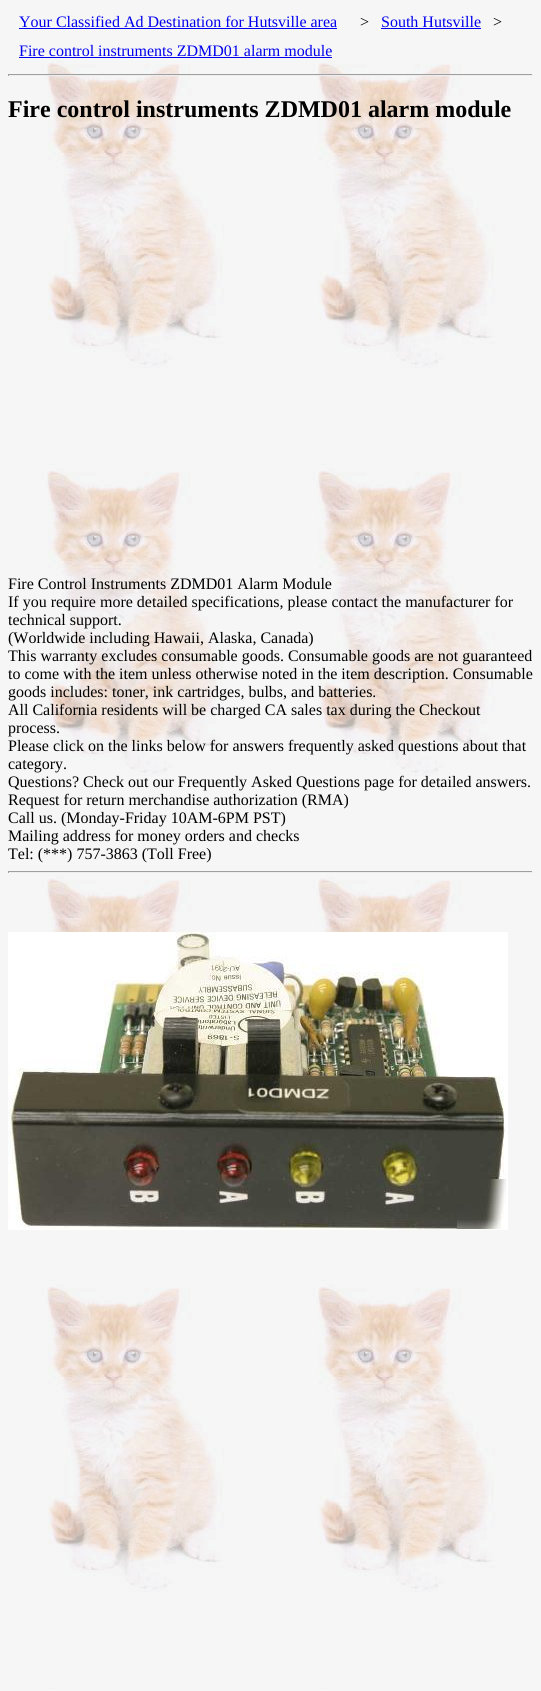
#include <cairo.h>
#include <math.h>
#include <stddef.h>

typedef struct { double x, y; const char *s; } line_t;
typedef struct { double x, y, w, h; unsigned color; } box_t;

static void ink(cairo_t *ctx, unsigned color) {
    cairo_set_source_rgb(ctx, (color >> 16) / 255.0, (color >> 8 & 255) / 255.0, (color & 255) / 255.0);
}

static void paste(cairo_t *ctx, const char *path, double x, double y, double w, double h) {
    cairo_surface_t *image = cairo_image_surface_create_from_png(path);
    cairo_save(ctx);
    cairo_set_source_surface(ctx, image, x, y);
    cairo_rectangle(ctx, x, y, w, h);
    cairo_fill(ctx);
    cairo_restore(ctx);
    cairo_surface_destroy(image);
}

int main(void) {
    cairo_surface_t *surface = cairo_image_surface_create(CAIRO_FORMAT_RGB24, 541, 1691);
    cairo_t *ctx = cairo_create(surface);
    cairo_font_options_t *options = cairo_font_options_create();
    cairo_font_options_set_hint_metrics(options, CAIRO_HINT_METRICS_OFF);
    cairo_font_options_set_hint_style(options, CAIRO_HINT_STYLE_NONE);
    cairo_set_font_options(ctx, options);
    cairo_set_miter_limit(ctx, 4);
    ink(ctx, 0xFFFFFF);
    cairo_paint(ctx);
    paste(ctx, "media/1.png", 0, 0, 541, 1691);
    cairo_select_font_face(ctx, "Liberation Serif", CAIRO_FONT_SLANT_NORMAL, CAIRO_FONT_WEIGHT_NORMAL);
    cairo_set_font_size(ctx, 16);
    ink(ctx, 0x0000EE);
    cairo_move_to(ctx, 19, 27);
    cairo_show_text(ctx, "Your Classified Ad Destination for Hutsville area");
    cairo_rectangle(ctx, 19, 28, 318, 1);
    cairo_fill(ctx);
    ink(ctx, 0x000000);
    cairo_move_to(ctx, 360, 27);
    cairo_show_text(ctx, ">");
    ink(ctx, 0x0000EE);
    cairo_move_to(ctx, 381, 27);
    cairo_show_text(ctx, "South Hutsville");
    cairo_rectangle(ctx, 381, 28, 100, 1);
    cairo_fill(ctx);
    ink(ctx, 0x000000);
    cairo_move_to(ctx, 493, 27);
    cairo_show_text(ctx, ">");
    ink(ctx, 0x0000EE);
    cairo_move_to(ctx, 19, 56);
    cairo_show_text(ctx, "Fire control instruments ZDMD01 alarm module");
    {
        static const box_t items[] = {
            {19, 57, 313, 1, 0x0000EE},
            {8, 74, 525, 1, 0x9F9F9F},
            {532, 74, 1, 2, 0xEEEEEE},
            {8, 75, 525, 1, 0xEEEEEE},
            {8, 74, 1, 2, 0x9F9F9F},
        };
        for (size_t i = 0; i < sizeof items / sizeof *items; i++) {
            ink(ctx, items[i].color);
            cairo_rectangle(ctx, items[i].x, items[i].y, items[i].w, items[i].h);
            cairo_fill(ctx);
        }
    }
    cairo_select_font_face(ctx, "Liberation Serif", CAIRO_FONT_SLANT_NORMAL, CAIRO_FONT_WEIGHT_BOLD);
    cairo_set_font_size(ctx, 24);
    ink(ctx, 0x000000);
    cairo_move_to(ctx, 8, 117);
    cairo_show_text(ctx, "Fire control instruments ZDMD01 alarm module");
    cairo_select_font_face(ctx, "Liberation Serif", CAIRO_FONT_SLANT_NORMAL, CAIRO_FONT_WEIGHT_NORMAL);
    cairo_set_font_size(ctx, 16);
    {
        static const line_t items[] = {
            {8, 589, "Fire Control Instruments ZDMD01 Alarm Module"},
            {8, 607, "If you require more detailed specifications, please contact the manufacturer for"},
            {8, 625, "technical support."},
            {8, 643, "(Worldwide including Hawaii, Alaska, Canada)"},
            {8, 661, "This warranty excludes consumable goods. Consumable goods are not guaranteed"},
            {8, 679, "to come with the item unless otherwise noted in the item description. Consumable"},
            {8, 697, "goods includes: toner, ink cartridges, bulbs, and batteries."},
            {8, 715, "All California residents will be charged CA sales tax during the Checkout"},
            {8, 733, "process."},
            {8, 751, "Please click on the links below for answers frequently asked questions about that"},
            {8, 769, "category."},
            {8, 787, "Questions? Check out our Frequently Asked Questions page for detailed answers."},
            {8, 805, "Request for return merchandise authorization (RMA)"},
            {8, 823, "Call us. (Monday-Friday 10AM-6PM PST)"},
            {8, 841, "Mailing address for money orders and checks"},
            {8, 859, "Tel: (***) 757-3863 (Toll Free)"},
        };
        for (size_t i = 0; i < sizeof items / sizeof *items; i++) {
            cairo_move_to(ctx, items[i].x, items[i].y);
            cairo_show_text(ctx, items[i].s);
        }
    }
    {
        static const box_t items[] = {
            {8, 871, 525, 1, 0x9F9F9F},
            {532, 871, 1, 2, 0xEEEEEE},
            {8, 872, 525, 1, 0xEEEEEE},
            {8, 871, 1, 2, 0x9F9F9F},
        };
        for (size_t i = 0; i < sizeof items / sizeof *items; i++) {
            ink(ctx, items[i].color);
            cairo_rectangle(ctx, items[i].x, items[i].y, items[i].w, items[i].h);
            cairo_fill(ctx);
        }
    }
    paste(ctx, "media/2.png", 8, 932, 500, 298);
    cairo_surface_write_to_png(surface, "image.png");
    cairo_font_options_destroy(options);
    cairo_destroy(ctx);
    cairo_surface_destroy(surface);
    return 0;
}
